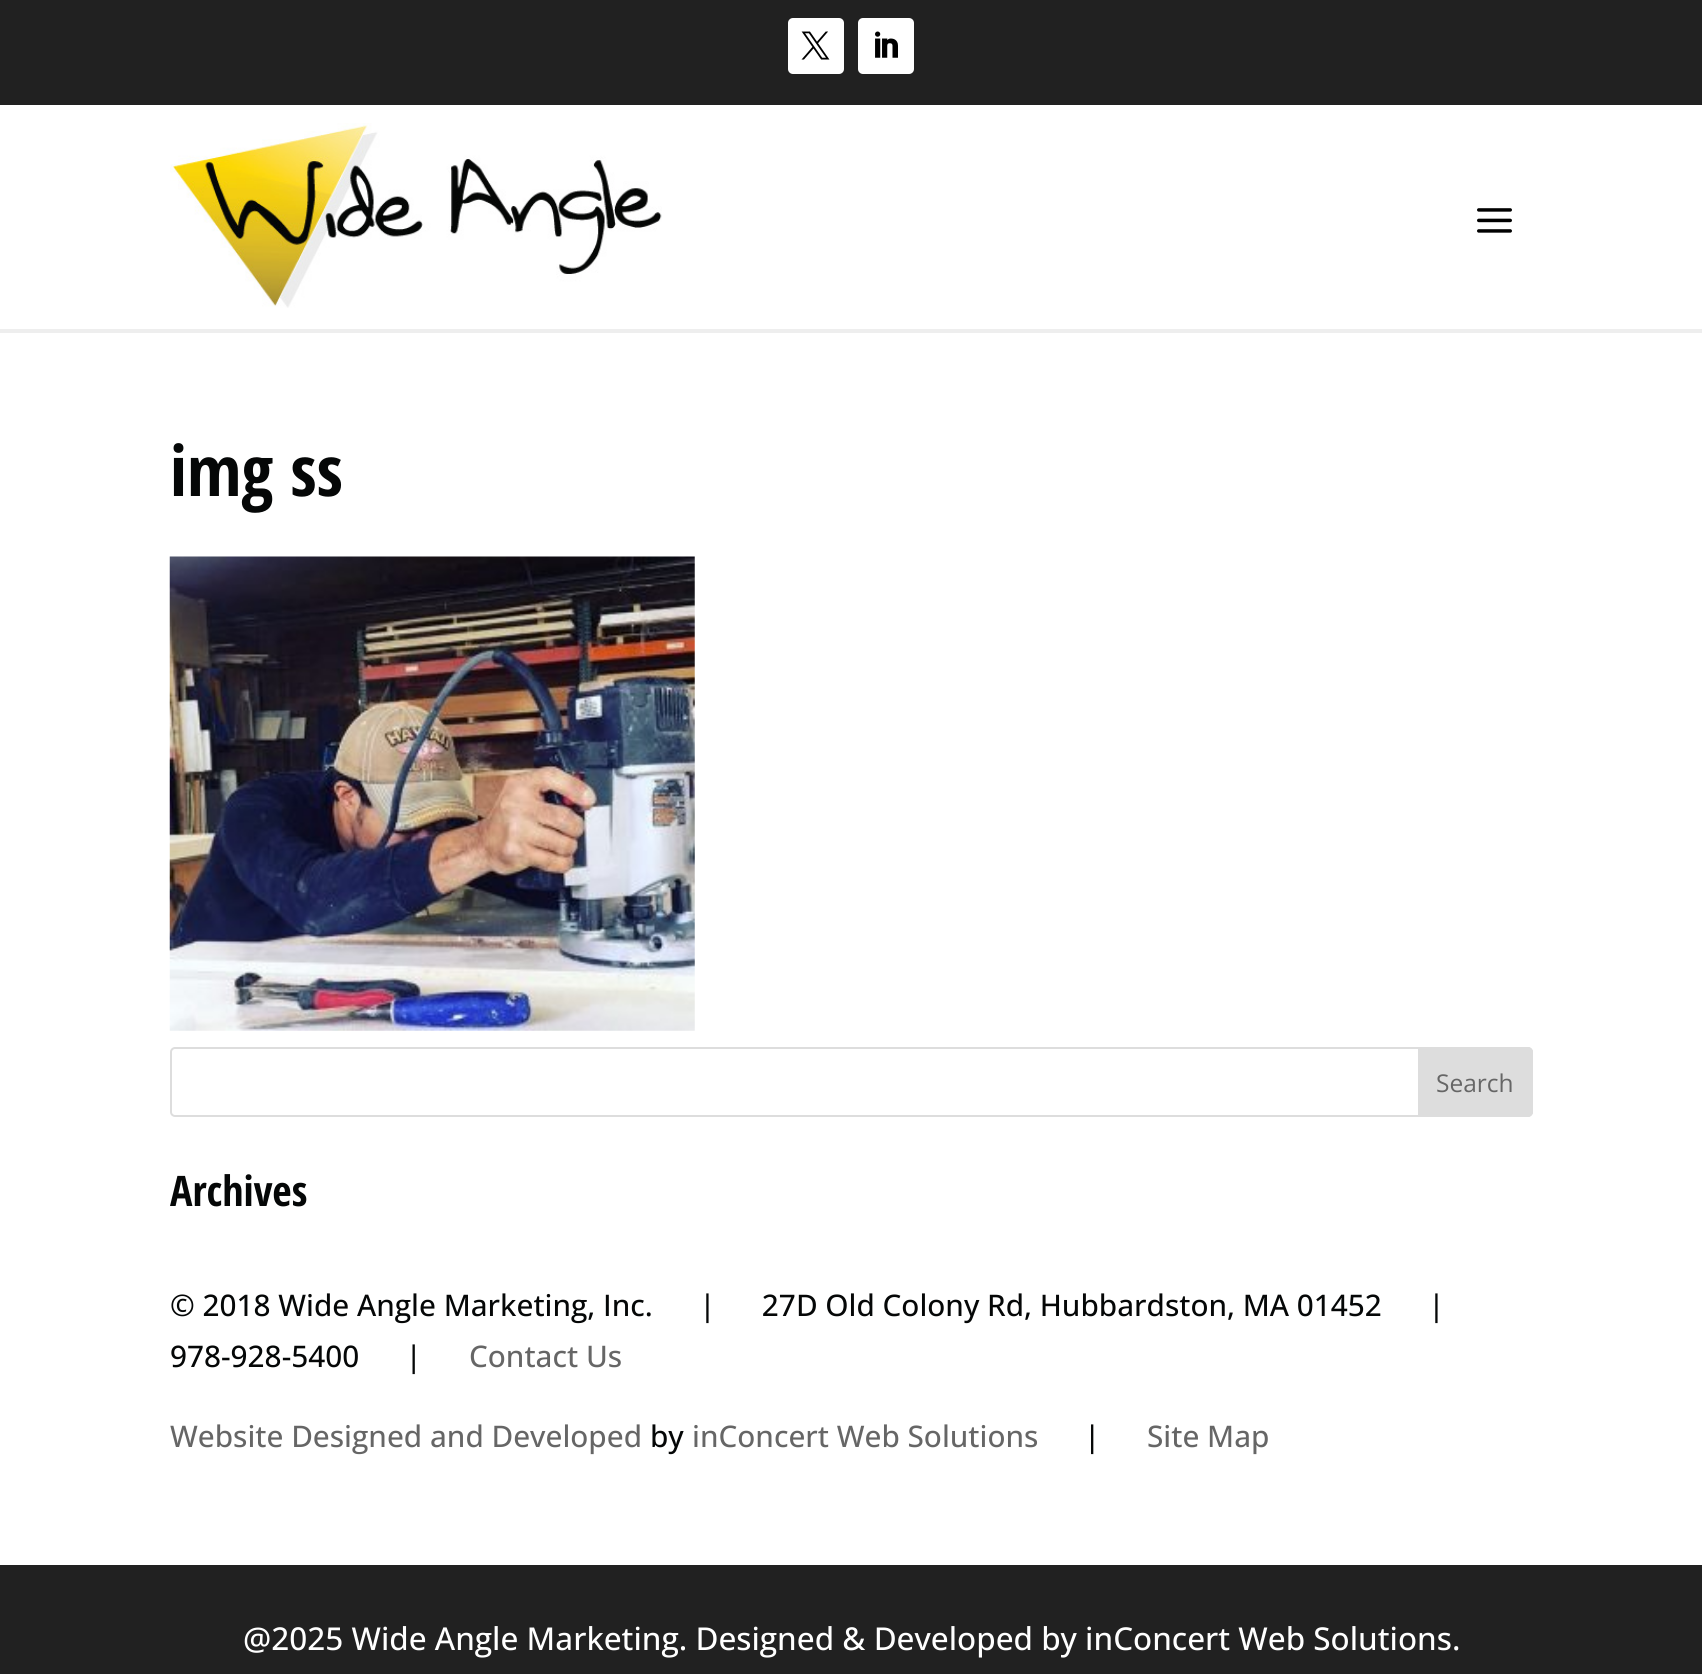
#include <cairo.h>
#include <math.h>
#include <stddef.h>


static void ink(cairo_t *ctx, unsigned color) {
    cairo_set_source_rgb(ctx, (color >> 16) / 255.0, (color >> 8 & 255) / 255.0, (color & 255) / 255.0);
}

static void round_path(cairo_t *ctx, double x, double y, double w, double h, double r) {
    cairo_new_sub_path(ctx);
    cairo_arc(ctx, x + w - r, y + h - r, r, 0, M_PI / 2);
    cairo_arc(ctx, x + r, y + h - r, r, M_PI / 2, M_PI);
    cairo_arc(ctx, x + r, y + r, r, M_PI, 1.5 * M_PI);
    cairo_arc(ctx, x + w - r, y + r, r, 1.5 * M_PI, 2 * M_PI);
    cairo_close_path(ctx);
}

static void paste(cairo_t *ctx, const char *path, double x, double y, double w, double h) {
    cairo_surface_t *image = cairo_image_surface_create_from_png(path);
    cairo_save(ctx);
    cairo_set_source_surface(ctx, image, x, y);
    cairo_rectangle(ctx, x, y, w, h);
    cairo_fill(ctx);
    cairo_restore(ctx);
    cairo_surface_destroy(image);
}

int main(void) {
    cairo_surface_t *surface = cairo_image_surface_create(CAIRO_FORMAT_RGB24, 1702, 1674);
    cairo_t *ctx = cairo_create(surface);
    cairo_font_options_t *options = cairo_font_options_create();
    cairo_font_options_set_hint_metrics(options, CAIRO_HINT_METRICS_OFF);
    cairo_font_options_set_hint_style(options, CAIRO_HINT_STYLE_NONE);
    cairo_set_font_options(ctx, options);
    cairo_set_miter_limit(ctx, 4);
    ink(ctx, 0xFFFFFF);
    cairo_paint(ctx);
    ink(ctx, 0x212121);
    cairo_rectangle(ctx, 0, 0, 1702, 105);
    cairo_fill(ctx);
    ink(ctx, 0xFFFFFF);
    round_path(ctx, 788, 18, 56, 56, 5);
    cairo_fill(ctx);
    paste(ctx, "media/1.png", 801, 31, 29, 29);
    round_path(ctx, 858, 18, 56, 56, 5);
    cairo_fill(ctx);
    paste(ctx, "media/2.png", 875, 31, 23, 27);
    ink(ctx, 0xEEEEEE);
    cairo_rectangle(ctx, 0, 329, 1702, 4);
    cairo_fill(ctx);
    paste(ctx, "media/3.png", 170, 123, 492, 185);
    paste(ctx, "media/4.png", 1477, 208, 35, 25);
    cairo_select_font_face(ctx, "Open Sans Condensed", CAIRO_FONT_SLANT_NORMAL, CAIRO_FONT_WEIGHT_BOLD);
    cairo_set_font_size(ctx, 70);
    ink(ctx, 0x050707);
    cairo_move_to(ctx, 170, 496);
    cairo_show_text(ctx, "img ss");
    paste(ctx, "media/5.png", 169, 556, 526, 475);
    round_path(ctx, 171, 1048, 1361, 68, 4);
    ink(ctx, 0xDDDDDD);
    cairo_stroke(ctx);
    cairo_new_path(ctx);
    cairo_move_to(ctx, 1419, 1048);
    cairo_line_to(ctx, 1528, 1048);
    cairo_curve_to(ctx, 1530, 1048, 1532, 1050, 1532, 1052);
    cairo_line_to(ctx, 1532, 1112);
    cairo_curve_to(ctx, 1532, 1114, 1530, 1116, 1528, 1116);
    cairo_line_to(ctx, 1419, 1116);
    cairo_close_path(ctx);
    cairo_fill_preserve(ctx);
    cairo_stroke(ctx);
    cairo_select_font_face(ctx, "Open Sans", CAIRO_FONT_SLANT_NORMAL, CAIRO_FONT_WEIGHT_NORMAL);
    cairo_set_font_size(ctx, 24.5);
    ink(ctx, 0x666666);
    cairo_move_to(ctx, 1436, 1092);
    cairo_show_text(ctx, "Search");
    cairo_select_font_face(ctx, "Open Sans Condensed", CAIRO_FONT_SLANT_NORMAL, CAIRO_FONT_WEIGHT_BOLD);
    cairo_set_font_size(ctx, 42);
    ink(ctx, 0x050707);
    cairo_move_to(ctx, 170, 1206);
    cairo_show_text(ctx, "Archives");
    cairo_select_font_face(ctx, "Open Sans Medium", CAIRO_FONT_SLANT_NORMAL, CAIRO_FONT_WEIGHT_NORMAL);
    cairo_set_font_size(ctx, 29.75);
    cairo_move_to(ctx, 170, 1316);
    cairo_show_text(ctx, "© 2018 Wide Angle Marketing, Inc.      |      27D Old Colony Rd, Hubbardston, MA 01452      |");
    cairo_move_to(ctx, 170, 1367);
    cairo_show_text(ctx, "978-928-5400      |");
    ink(ctx, 0x666666);
    cairo_move_to(ctx, 469, 1367);
    cairo_show_text(ctx, "Contact Us");
    cairo_move_to(ctx, 170, 1447);
    cairo_show_text(ctx, "Website Designed and Developed");
    ink(ctx, 0x050707);
    cairo_move_to(ctx, 650, 1447);
    cairo_show_text(ctx, "by");
    ink(ctx, 0x666666);
    cairo_move_to(ctx, 692, 1447);
    cairo_show_text(ctx, "inConcert Web Solutions");
    ink(ctx, 0x050707);
    cairo_move_to(ctx, 1084, 1447);
    cairo_show_text(ctx, "|");
    ink(ctx, 0x666666);
    cairo_move_to(ctx, 1147, 1447);
    cairo_show_text(ctx, "Site Map");
    ink(ctx, 0x212121);
    cairo_rectangle(ctx, 0, 1565, 1702, 109);
    cairo_fill(ctx);
    cairo_set_font_size(ctx, 31.5);
    ink(ctx, 0xFFFFFF);
    cairo_move_to(ctx, 243, 1650);
    cairo_show_text(ctx, "@2025 Wide Angle Marketing. Designed & Developed by inConcert Web Solutions.");
    cairo_surface_write_to_png(surface, "image.png");
    cairo_font_options_destroy(options);
    cairo_destroy(ctx);
    cairo_surface_destroy(surface);
    return 0;
}
